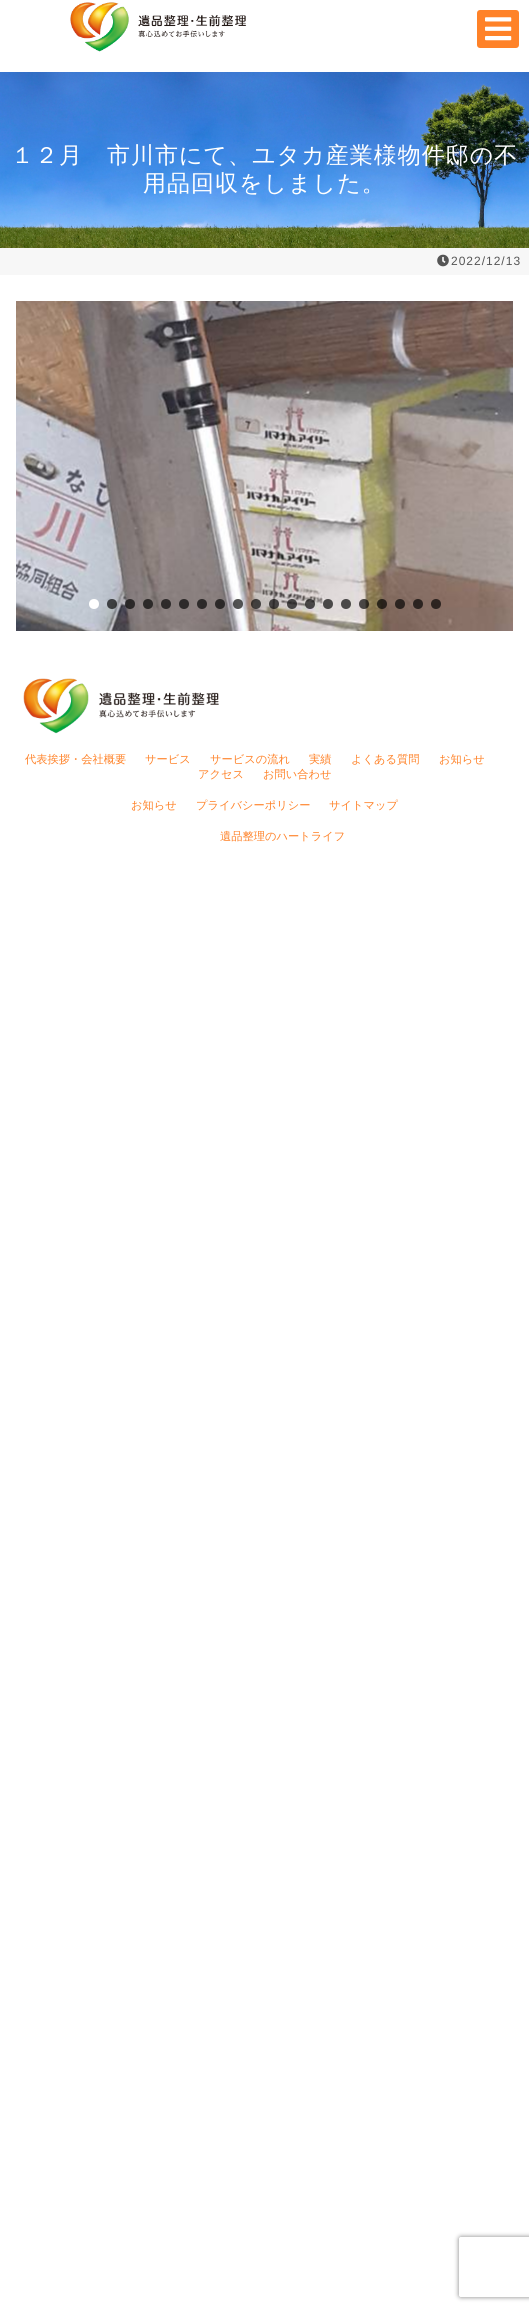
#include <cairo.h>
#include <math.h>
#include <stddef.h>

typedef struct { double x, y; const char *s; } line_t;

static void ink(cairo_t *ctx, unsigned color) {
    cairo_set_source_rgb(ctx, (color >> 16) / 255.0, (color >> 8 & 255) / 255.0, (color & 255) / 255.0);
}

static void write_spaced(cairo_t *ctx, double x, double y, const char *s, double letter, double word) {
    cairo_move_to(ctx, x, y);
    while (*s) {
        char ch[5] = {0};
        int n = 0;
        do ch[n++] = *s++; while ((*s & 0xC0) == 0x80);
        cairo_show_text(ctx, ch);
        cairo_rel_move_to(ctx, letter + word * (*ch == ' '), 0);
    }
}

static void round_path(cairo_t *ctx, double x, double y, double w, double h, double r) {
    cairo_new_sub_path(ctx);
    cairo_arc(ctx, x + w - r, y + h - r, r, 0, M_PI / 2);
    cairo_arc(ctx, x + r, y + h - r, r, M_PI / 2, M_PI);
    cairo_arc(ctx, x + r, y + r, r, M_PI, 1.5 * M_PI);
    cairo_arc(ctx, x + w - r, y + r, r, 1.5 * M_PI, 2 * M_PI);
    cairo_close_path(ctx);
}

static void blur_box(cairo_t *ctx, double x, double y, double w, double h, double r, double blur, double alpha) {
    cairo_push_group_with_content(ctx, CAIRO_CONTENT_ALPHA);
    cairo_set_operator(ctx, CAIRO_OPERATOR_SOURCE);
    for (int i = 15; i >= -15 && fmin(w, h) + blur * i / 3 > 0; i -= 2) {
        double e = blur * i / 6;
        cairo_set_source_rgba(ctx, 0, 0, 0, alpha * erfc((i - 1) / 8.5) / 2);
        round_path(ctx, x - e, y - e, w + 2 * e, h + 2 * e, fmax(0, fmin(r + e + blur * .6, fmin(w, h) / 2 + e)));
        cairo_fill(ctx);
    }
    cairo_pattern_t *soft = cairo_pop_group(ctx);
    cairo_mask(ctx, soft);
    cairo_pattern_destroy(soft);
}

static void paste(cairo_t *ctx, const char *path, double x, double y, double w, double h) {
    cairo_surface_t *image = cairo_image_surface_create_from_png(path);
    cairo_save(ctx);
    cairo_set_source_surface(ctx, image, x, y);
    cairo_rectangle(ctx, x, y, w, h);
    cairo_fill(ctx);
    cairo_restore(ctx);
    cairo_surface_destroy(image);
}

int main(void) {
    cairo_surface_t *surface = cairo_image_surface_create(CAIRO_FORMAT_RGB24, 529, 2311);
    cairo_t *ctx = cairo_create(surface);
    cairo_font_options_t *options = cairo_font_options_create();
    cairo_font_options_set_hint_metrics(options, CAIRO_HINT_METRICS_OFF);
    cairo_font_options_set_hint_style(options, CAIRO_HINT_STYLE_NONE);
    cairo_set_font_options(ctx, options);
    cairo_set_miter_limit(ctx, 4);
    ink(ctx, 0xFFFFFF);
    cairo_paint(ctx);
    paste(ctx, "media/1.png", 70, 2, 177, 50);
    ink(ctx, 0xFF8228);
    round_path(ctx, 477, 10, 42, 38, 3);
    cairo_fill(ctx);
    paste(ctx, "media/2.png", 485, 17, 27, 24);
    paste(ctx, "media/3.png", 0, 72, 529, 176);
    cairo_select_font_face(ctx, "WenQuanYi Zen Hei Medium", CAIRO_FONT_SLANT_NORMAL, CAIRO_FONT_WEIGHT_NORMAL);
    cairo_set_font_size(ctx, 23);
    ink(ctx, 0xFFFFFF);
    write_spaced(ctx, 11, 163, "１２月　市川市にて、ユタカ産業様物件邸の不", 1, 0);
    write_spaced(ctx, 143, 191, "用品回収をしました。", 1, 0);
    ink(ctx, 0xF7F7F7);
    cairo_rectangle(ctx, 0, 248, 529, 27);
    cairo_fill(ctx);
    paste(ctx, "media/4.png", 437, 254, 12, 13);
    cairo_select_font_face(ctx, "Liberation Sans", CAIRO_FONT_SLANT_NORMAL, CAIRO_FONT_WEIGHT_NORMAL);
    cairo_set_font_size(ctx, 12);
    ink(ctx, 0x555555);
    write_spaced(ctx, 451, 265, "2022/12/13", 1, 0);
    paste(ctx, "media/5.png", 16, 301, 497, 330);
    ink(ctx, 0xFFFFFF);
    cairo_arc(ctx, 94, 604, 5, 0, 2 * M_PI);
    cairo_fill(ctx);
    cairo_set_source_rgba(ctx, 0, 0, 0, 0.67);
    cairo_arc(ctx, 112, 604, 5, 0, 2 * M_PI);
    cairo_fill(ctx);
    cairo_arc(ctx, 130, 604, 5, 0, 2 * M_PI);
    cairo_fill(ctx);
    cairo_arc(ctx, 148, 604, 5, 0, 2 * M_PI);
    cairo_fill(ctx);
    cairo_arc(ctx, 166, 604, 5, 0, 2 * M_PI);
    cairo_fill(ctx);
    cairo_arc(ctx, 184, 604, 5, 0, 2 * M_PI);
    cairo_fill(ctx);
    cairo_arc(ctx, 202, 604, 5, 0, 2 * M_PI);
    cairo_fill(ctx);
    cairo_arc(ctx, 220, 604, 5, 0, 2 * M_PI);
    cairo_fill(ctx);
    cairo_arc(ctx, 238, 604, 5, 0, 2 * M_PI);
    cairo_fill(ctx);
    cairo_arc(ctx, 256, 604, 5, 0, 2 * M_PI);
    cairo_fill(ctx);
    cairo_arc(ctx, 274, 604, 5, 0, 2 * M_PI);
    cairo_fill(ctx);
    cairo_arc(ctx, 292, 604, 5, 0, 2 * M_PI);
    cairo_fill(ctx);
    cairo_arc(ctx, 310, 604, 5, 0, 2 * M_PI);
    cairo_fill(ctx);
    cairo_arc(ctx, 328, 604, 5, 0, 2 * M_PI);
    cairo_fill(ctx);
    cairo_arc(ctx, 346, 604, 5, 0, 2 * M_PI);
    cairo_fill(ctx);
    cairo_arc(ctx, 364, 604, 5, 0, 2 * M_PI);
    cairo_fill(ctx);
    cairo_arc(ctx, 382, 604, 5, 0, 2 * M_PI);
    cairo_fill(ctx);
    cairo_arc(ctx, 400, 604, 5, 0, 2 * M_PI);
    cairo_fill(ctx);
    cairo_arc(ctx, 418, 604, 5, 0, 2 * M_PI);
    cairo_fill(ctx);
    cairo_arc(ctx, 436, 604, 5, 0, 2 * M_PI);
    cairo_fill(ctx);
    paste(ctx, "media/6.png", 23, 678, 196, 56);
    cairo_select_font_face(ctx, "WenQuanYi Zen Hei Medium", CAIRO_FONT_SLANT_NORMAL, CAIRO_FONT_WEIGHT_NORMAL);
    cairo_set_font_size(ctx, 11.25);
    ink(ctx, 0xFF8228);
    {
        static const line_t items[] = {
            {25, 763, "代表挨拶・会社概要"},
            {145, 763, "サービス"},
            {210, 763, "サービスの流れ"},
            {309, 763, "実績"},
            {351, 763, "よくある質問"},
            {439, 763, "お知らせ"},
            {198, 778, "アクセス"},
            {263, 778, "お問い合わせ"},
            {131, 809, "お知らせ"},
            {196, 809, "プライバシーポリシー"},
            {329, 809, "サイトマップ"},
            {220, 840, "遺品整理のハートライフ"},
        };
        for (size_t i = 0; i < sizeof items / sizeof *items; i++) {
            cairo_move_to(ctx, items[i].x, items[i].y);
            cairo_show_text(ctx, items[i].s);
        }
    }
    cairo_save(ctx);
    cairo_set_fill_rule(ctx, CAIRO_FILL_RULE_EVEN_ODD);
    cairo_new_path(ctx);
    cairo_move_to(ctx, 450, 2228);
    cairo_line_to(ctx, 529, 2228);
    cairo_line_to(ctx, 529, 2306);
    cairo_line_to(ctx, 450, 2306);
    cairo_close_path(ctx);
    cairo_move_to(ctx, 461, 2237);
    cairo_line_to(ctx, 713, 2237);
    cairo_curve_to(ctx, 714, 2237, 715, 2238, 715, 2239);
    cairo_line_to(ctx, 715, 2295);
    cairo_curve_to(ctx, 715, 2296, 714, 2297, 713, 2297);
    cairo_line_to(ctx, 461, 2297);
    cairo_curve_to(ctx, 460, 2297, 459, 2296, 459, 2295);
    cairo_line_to(ctx, 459, 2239);
    cairo_curve_to(ctx, 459, 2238, 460, 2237, 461, 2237);
    cairo_close_path(ctx);
    cairo_clip(ctx);
    ink(ctx, 0x808080);
    blur_box(ctx, 459, 2237, 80, 60, 2, 2.5, 1);
    cairo_restore(ctx);
    cairo_surface_write_to_png(surface, "image.png");
    cairo_font_options_destroy(options);
    cairo_destroy(ctx);
    cairo_surface_destroy(surface);
    return 0;
}
